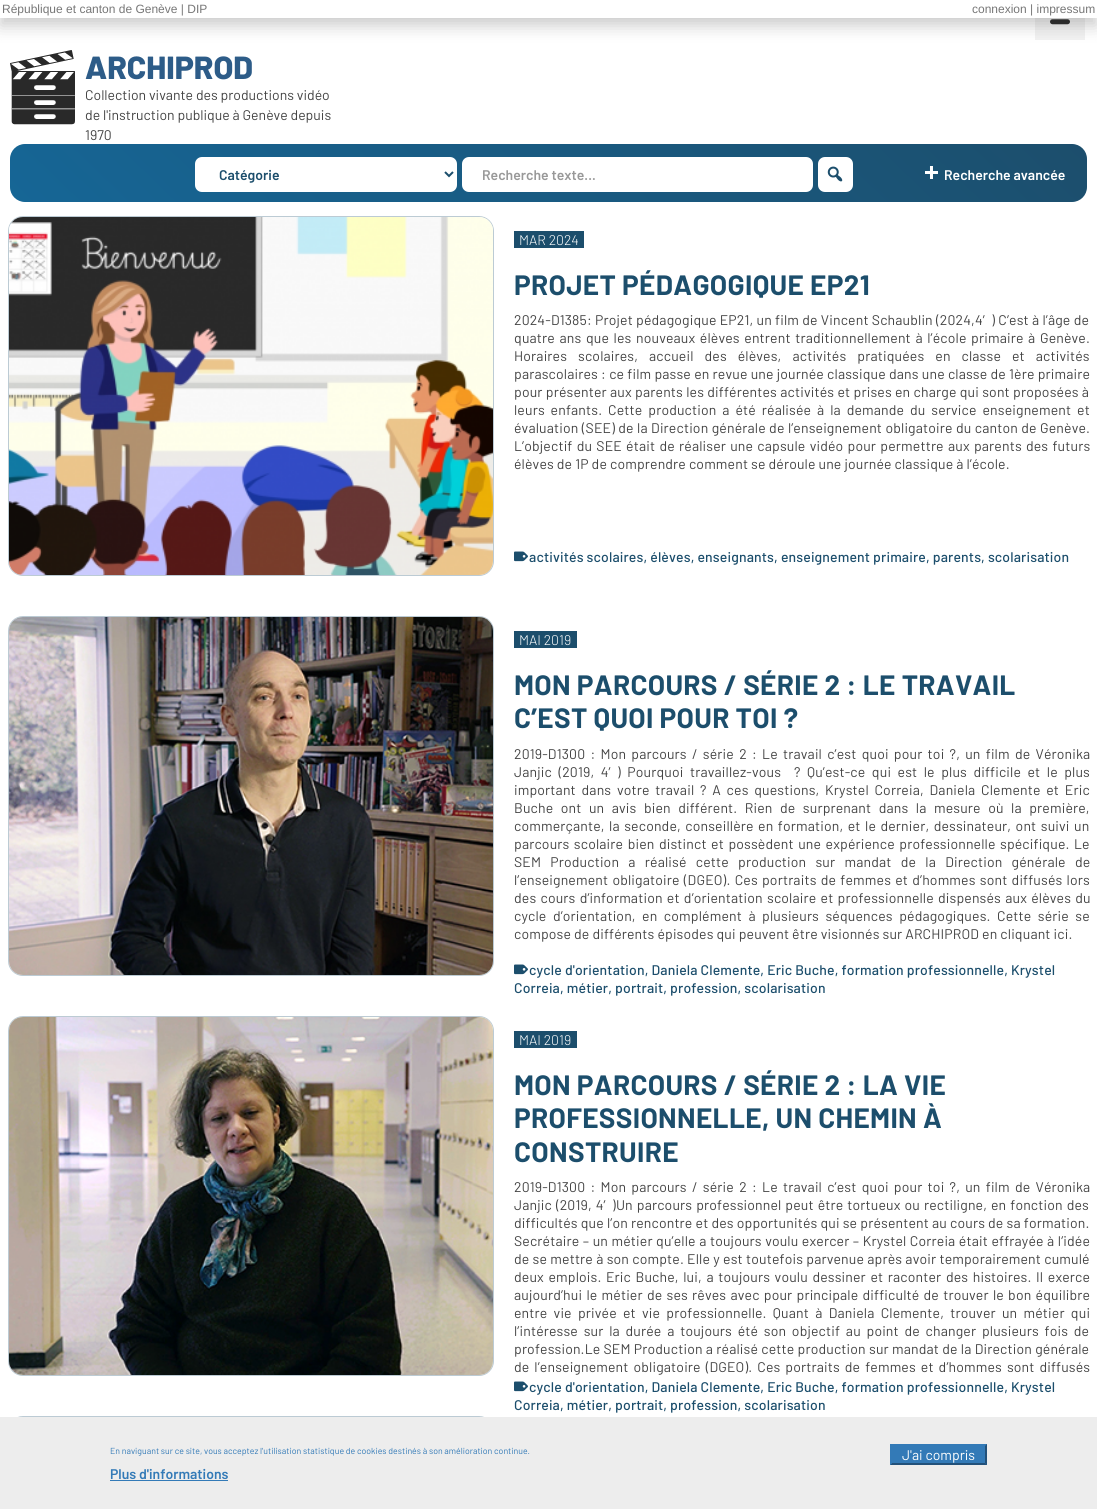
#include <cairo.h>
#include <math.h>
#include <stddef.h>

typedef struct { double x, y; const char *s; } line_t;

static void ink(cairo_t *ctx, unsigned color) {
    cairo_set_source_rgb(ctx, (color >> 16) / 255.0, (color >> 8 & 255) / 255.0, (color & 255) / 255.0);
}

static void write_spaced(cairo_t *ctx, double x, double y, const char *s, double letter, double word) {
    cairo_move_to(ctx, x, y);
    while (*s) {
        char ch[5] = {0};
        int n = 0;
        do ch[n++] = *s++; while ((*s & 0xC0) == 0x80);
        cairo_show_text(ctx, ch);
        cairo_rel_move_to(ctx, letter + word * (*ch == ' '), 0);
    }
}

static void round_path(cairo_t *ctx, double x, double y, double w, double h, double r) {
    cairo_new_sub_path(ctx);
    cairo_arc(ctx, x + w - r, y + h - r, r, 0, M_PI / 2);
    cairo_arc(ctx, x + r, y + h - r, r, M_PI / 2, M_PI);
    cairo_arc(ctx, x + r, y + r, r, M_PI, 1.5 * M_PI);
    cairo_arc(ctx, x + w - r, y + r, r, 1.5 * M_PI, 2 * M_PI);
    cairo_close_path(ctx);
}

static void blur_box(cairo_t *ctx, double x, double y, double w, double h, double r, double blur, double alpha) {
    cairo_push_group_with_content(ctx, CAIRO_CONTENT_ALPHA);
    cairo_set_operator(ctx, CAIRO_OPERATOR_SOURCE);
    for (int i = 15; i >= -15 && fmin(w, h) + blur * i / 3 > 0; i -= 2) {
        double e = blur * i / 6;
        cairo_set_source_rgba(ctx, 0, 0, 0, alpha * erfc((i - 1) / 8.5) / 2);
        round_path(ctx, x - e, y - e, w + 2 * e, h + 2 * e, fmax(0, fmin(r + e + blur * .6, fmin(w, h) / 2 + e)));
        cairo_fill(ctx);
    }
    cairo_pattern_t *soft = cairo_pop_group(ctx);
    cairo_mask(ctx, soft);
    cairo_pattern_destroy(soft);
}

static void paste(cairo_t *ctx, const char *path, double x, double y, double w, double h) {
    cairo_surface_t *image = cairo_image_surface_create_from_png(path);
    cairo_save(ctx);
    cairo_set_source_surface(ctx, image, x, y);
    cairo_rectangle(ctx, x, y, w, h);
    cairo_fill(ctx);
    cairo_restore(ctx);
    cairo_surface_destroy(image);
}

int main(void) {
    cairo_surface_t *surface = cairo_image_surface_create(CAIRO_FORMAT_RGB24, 1097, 1509);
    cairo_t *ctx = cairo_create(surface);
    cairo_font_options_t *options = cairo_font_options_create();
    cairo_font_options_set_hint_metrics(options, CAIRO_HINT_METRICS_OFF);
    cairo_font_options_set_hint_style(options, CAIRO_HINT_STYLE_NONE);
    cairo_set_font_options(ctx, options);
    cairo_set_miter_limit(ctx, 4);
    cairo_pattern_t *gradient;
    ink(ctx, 0xFFFFFF);
    cairo_paint(ctx);
    ink(ctx, 0xF2F2F2);
    cairo_rectangle(ctx, 1035, 18, 50, 22);
    cairo_fill(ctx);
    paste(ctx, "media/1.png", 1050, 19, 20, 6);
    paste(ctx, "media/2.png", 10, 50, 65, 75);
    ink(ctx, 0x000000);
    blur_box(ctx, 0, 8, 1097, 18, 0, 8, 0.2);
    ink(ctx, 0xFFFFFF);
    cairo_rectangle(ctx, 0, 0, 1097, 18);
    cairo_fill(ctx);
    cairo_select_font_face(ctx, "Liberation Sans", CAIRO_FONT_SLANT_NORMAL, CAIRO_FONT_WEIGHT_NORMAL);
    cairo_set_font_size(ctx, 12);
    ink(ctx, 0x777777);
    cairo_move_to(ctx, 2, 13);
    cairo_show_text(ctx, "République et canton de Genève | DIP");
    cairo_move_to(ctx, 972, 13);
    cairo_show_text(ctx, "connexion | impressum");
    cairo_select_font_face(ctx, "Barlow ExtraBold", CAIRO_FONT_SLANT_NORMAL, CAIRO_FONT_WEIGHT_NORMAL);
    cairo_set_font_size(ctx, 32);
    ink(ctx, 0x2D5C88);
    cairo_move_to(ctx, 85, 79);
    cairo_show_text(ctx, "ARCHIPROD");
    cairo_select_font_face(ctx, "Barlow", CAIRO_FONT_SLANT_NORMAL, CAIRO_FONT_WEIGHT_NORMAL);
    cairo_set_font_size(ctx, 14);
    ink(ctx, 0x444444);
    {
        static const line_t items[] = {
            {85, 100, "Collection vivante des productions vidéo"},
            {85, 120, "de l'instruction publique à Genève depuis"},
            {85, 140, "1970"},
        };
        for (size_t i = 0; i < sizeof items / sizeof *items; i++) {
            cairo_move_to(ctx, items[i].x, items[i].y);
            cairo_show_text(ctx, items[i].s);
        }
    }
    gradient = cairo_pattern_create_linear(823, -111, 274, 457);
    cairo_pattern_add_color_stop_rgba(gradient, 0, 0.11, 0.306, 0.424, 1);
    cairo_pattern_add_color_stop_rgba(gradient, 1, 0.086, 0.4, 0.588, 1);
    cairo_set_source(ctx, gradient);
    cairo_pattern_destroy(gradient);
    round_path(ctx, 10, 144, 1077, 58, 15);
    cairo_fill(ctx);
    ink(ctx, 0xFFFFFF);
    round_path(ctx, 195, 157, 262, 35, 7);
    cairo_fill(ctx);
    cairo_new_path(ctx);
    cairo_move_to(ctx, 445, 172);
    cairo_line_to(ctx, 449, 176);
    cairo_line_to(ctx, 453, 172);
    ink(ctx, 0x1C4E6C);
    cairo_stroke(ctx);
    cairo_select_font_face(ctx, "Barlow SemiBold", CAIRO_FONT_SLANT_NORMAL, CAIRO_FONT_WEIGHT_NORMAL);
    cairo_move_to(ctx, 219, 180);
    cairo_show_text(ctx, "Catégorie");
    ink(ctx, 0xFFFFFF);
    round_path(ctx, 462, 157, 351, 35, 7);
    cairo_fill(ctx);
    ink(ctx, 0x999999);
    cairo_move_to(ctx, 482, 180);
    cairo_show_text(ctx, "Recherche texte...");
    ink(ctx, 0xFFFFFF);
    round_path(ctx, 818, 157, 35, 35, 7);
    cairo_fill(ctx);
    paste(ctx, "media/3.png", 827, 166, 16, 16);
    paste(ctx, "media/4.png", 925, 166, 13, 13);
    cairo_move_to(ctx, 944, 180);
    cairo_show_text(ctx, "Recherche avancée");
    round_path(ctx, 8.5, 216.5, 485, 359, 14.5);
    ink(ctx, 0xBCCBD4);
    cairo_set_line_width(ctx, 1);
    cairo_stroke(ctx);
    paste(ctx, "media/5.png", 9, 217, 484, 358);
    ink(ctx, 0x1C4E6C);
    cairo_rectangle(ctx, 514, 231, 70, 17);
    cairo_fill(ctx);
    cairo_select_font_face(ctx, "Barlow Light", CAIRO_FONT_SLANT_NORMAL, CAIRO_FONT_WEIGHT_NORMAL);
    ink(ctx, 0xFFFFFF);
    cairo_move_to(ctx, 519, 245);
    cairo_show_text(ctx, "MAR 2024");
    cairo_select_font_face(ctx, "Barlow", CAIRO_FONT_SLANT_NORMAL, CAIRO_FONT_WEIGHT_BOLD);
    cairo_set_font_size(ctx, 28);
    ink(ctx, 0x1C4E6C);
    write_spaced(ctx, 514, 295, "PROJET PÉDAGOGIQUE EP21", 0.3, 0);
    cairo_select_font_face(ctx, "Barlow", CAIRO_FONT_SLANT_NORMAL, CAIRO_FONT_WEIGHT_NORMAL);
    cairo_set_font_size(ctx, 14);
    ink(ctx, 0x444444);
    write_spaced(ctx, 514, 325, "2024-D1385: Projet pédagogique EP21, un film de Vincent Schaublin (2024,4′) C’est à l’âge de", 0.15, 0.25);
    write_spaced(ctx, 514, 343, "quatre ans que les nouveaux élèves entrent traditionnellement à l’école primaire à Genève.", 0.15, 1.6);
    write_spaced(ctx, 514, 361, "Horaires scolaires, accueil des élèves, activités pratiquées en classe et activités", 0.15, 8);
    write_spaced(ctx, 514, 379, "parascolaires : ce film passe en revue une journée classique dans une classe de 1ère primaire", 0.15, 0.2);
    write_spaced(ctx, 514, 397, "pour présenter aux parents les différentes activités et prises en charge qui sont proposées à", 0.15, 0.3);
    write_spaced(ctx, 514, 415, "leurs enfants. Cette production a été réalisée à la demande du service enseignement et", 0.15, 2.9);
    write_spaced(ctx, 514, 433, "évaluation (SEE) de la Direction générale de l’enseignement obligatoire du canton de Genève.", 0.15, 0.4);
    write_spaced(ctx, 514, 451, "L’objectif du SEE était de réaliser une capsule vidéo pour permettre aux parents des futurs", 0.15, 1.25);
    write_spaced(ctx, 514, 469, "élèves de 1P de comprendre comment se déroule une journée classique à l’école.", 0.15, 0);
    paste(ctx, "media/6.png", 514, 551, 14, 11);
    cairo_select_font_face(ctx, "Barlow Medium", CAIRO_FONT_SLANT_NORMAL, CAIRO_FONT_WEIGHT_NORMAL);
    ink(ctx, 0x1C4E6C);
    write_spaced(ctx, 529, 562, "activités scolaires, élèves, enseignants, enseignement primaire, parents, scolarisation", 0.15, 0);
    round_path(ctx, 8.5, 616.5, 485, 359, 14.5);
    ink(ctx, 0xBCCBD4);
    cairo_stroke(ctx);
    paste(ctx, "media/7.png", 9, 617, 484, 358);
    ink(ctx, 0x1C4E6C);
    cairo_rectangle(ctx, 514, 631, 63, 17);
    cairo_fill(ctx);
    cairo_select_font_face(ctx, "Barlow Light", CAIRO_FONT_SLANT_NORMAL, CAIRO_FONT_WEIGHT_NORMAL);
    ink(ctx, 0xFFFFFF);
    cairo_move_to(ctx, 519, 645);
    cairo_show_text(ctx, "MAI 2019");
    cairo_select_font_face(ctx, "Barlow", CAIRO_FONT_SLANT_NORMAL, CAIRO_FONT_WEIGHT_BOLD);
    cairo_set_font_size(ctx, 28);
    ink(ctx, 0x1C4E6C);
    write_spaced(ctx, 514, 695, "MON PARCOURS / SÉRIE 2 : LE TRAVAIL", 0.3, 0);
    write_spaced(ctx, 514, 728, "C’EST QUOI POUR TOI ?", 0.3, 0);
    cairo_select_font_face(ctx, "Barlow", CAIRO_FONT_SLANT_NORMAL, CAIRO_FONT_WEIGHT_NORMAL);
    cairo_set_font_size(ctx, 14);
    ink(ctx, 0x444444);
    write_spaced(ctx, 514, 759, "2019-D1300 : Mon parcours / série 2 : Le travail c’est quoi pour toi ?, un film de Véronika", 0.15, 2.25);
    write_spaced(ctx, 514, 777, "Janjic (2019, 4′) Pourquoi travaillez-vous  ? Qu’est-ce qui est le plus difficile et le plus", 0.15, 3.5);
    write_spaced(ctx, 514, 795, "important dans votre travail ? A ces questions, Krystel Correia, Daniela Clemente et Eric", 0.15, 2.75);
    write_spaced(ctx, 514, 813, "Buche ont un avis bien différent. Rien de surprenant dans la mesure où la première,", 0.15, 4.5);
    write_spaced(ctx, 514, 831, "commerçante, la seconde, conseillère en formation, et le dernier, dessinateur, ont suivi un", 0.15, 1.5);
    write_spaced(ctx, 514, 849, "parcours scolaire bien distinct et possèdent une expérience professionnelle spécifique. Le", 0.15, 1.5);
    write_spaced(ctx, 514, 867, "SEM Production a réalisé cette production sur mandat de la Direction générale de", 0.15, 6.25);
    write_spaced(ctx, 514, 885, "l’enseignement obligatoire (DGEO). Ces portraits de femmes et d’hommes sont diffusés lors", 0.15, 1.25);
    write_spaced(ctx, 514, 903, "des cours d’information et d’orientation scolaire et professionnelle dispensés aux élèves du", 0.15, 1.25);
    write_spaced(ctx, 514, 921, "cycle d’orientation, en complément à plusieurs séquences pédagogiques. Cette série se", 0.15, 3.5);
    write_spaced(ctx, 514, 939, "compose de différents épisodes qui peuvent être visionnés sur ARCHIPROD en cliquant ici.", 0.15, 0);
    paste(ctx, "media/6.png", 514, 964, 14, 11);
    cairo_select_font_face(ctx, "Barlow Medium", CAIRO_FONT_SLANT_NORMAL, CAIRO_FONT_WEIGHT_NORMAL);
    ink(ctx, 0x1C4E6C);
    write_spaced(ctx, 529, 975, "cycle d'orientation, Daniela Clemente, Eric Buche, formation professionnelle, Krystel", 0.15, 0);
    write_spaced(ctx, 514, 993, "Correia, métier, portrait, profession, scolarisation", 0.15, 0);
    round_path(ctx, 8.5, 1016.5, 485, 359, 14.5);
    ink(ctx, 0xBCCBD4);
    cairo_stroke(ctx);
    paste(ctx, "media/8.png", 9, 1017, 484, 358);
    ink(ctx, 0x1C4E6C);
    cairo_rectangle(ctx, 514, 1031, 63, 17);
    cairo_fill(ctx);
    cairo_select_font_face(ctx, "Barlow Light", CAIRO_FONT_SLANT_NORMAL, CAIRO_FONT_WEIGHT_NORMAL);
    ink(ctx, 0xFFFFFF);
    cairo_move_to(ctx, 519, 1045);
    cairo_show_text(ctx, "MAI 2019");
    cairo_select_font_face(ctx, "Barlow", CAIRO_FONT_SLANT_NORMAL, CAIRO_FONT_WEIGHT_BOLD);
    cairo_set_font_size(ctx, 28);
    ink(ctx, 0x1C4E6C);
    {
        static const line_t items[] = {
            {514, 1095, "MON PARCOURS / SÉRIE 2 : LA VIE"},
            {514, 1128, "PROFESSIONNELLE, UN CHEMIN À"},
            {514, 1162, "CONSTRUIRE"},
        };
        for (size_t i = 0; i < sizeof items / sizeof *items; i++) {
            write_spaced(ctx, items[i].x, items[i].y, items[i].s, 0.3, 0);
        }
    }
    cairo_select_font_face(ctx, "Barlow", CAIRO_FONT_SLANT_NORMAL, CAIRO_FONT_WEIGHT_NORMAL);
    cairo_set_font_size(ctx, 14);
    ink(ctx, 0x444444);
    write_spaced(ctx, 514, 1192, "2019-D1300 : Mon parcours / série 2 : Le travail c’est quoi pour toi ?, un film de Véronika", 0.15, 2.25);
    write_spaced(ctx, 514, 1210, "Janjic (2019, 4′)Un parcours professionnel peut être tortueux ou rectiligne, en fonction des", 0.15, 1);
    write_spaced(ctx, 514, 1228, "difficultés que l’on rencontre et des opportunités qui se présentent au cours de sa formation.", 0.15, 0.1);
    write_spaced(ctx, 514, 1246, "Secrétaire – un métier qu’elle a toujours voulu exercer – Krystel Correia était effrayée à l’idée", 0.15, 0.5);
    write_spaced(ctx, 514, 1264, "de se mettre à son compte. Elle y est toutefois parvenue après avoir temporairement cumulé", 0.15, 0.25);
    write_spaced(ctx, 514, 1282, "deux emplois. Eric Buche, lui, a toujours voulu dessiner et raconter des histoires. Il exerce", 0.15, 1.6);
    write_spaced(ctx, 514, 1300, "aujourd’hui le métier de ses rêves avec pour principale difficulté de trouver le bon équilibre", 0.15, 1.25);
    write_spaced(ctx, 514, 1318, "entre vie privée et vie professionnelle. Quant à Daniela Clemente, trouver un métier qui", 0.15, 3.25);
    write_spaced(ctx, 514, 1336, "l’intéresse sur la durée a toujours été son objectif au point de changer plusieurs fois de", 0.15, 2.75);
    write_spaced(ctx, 514, 1354, "profession.Le SEM Production a réalisé cette production sur mandat de la Direction générale", 0.15, 0.25);
    write_spaced(ctx, 514, 1372, "de l’enseignement obligatoire (DGEO). Ces portraits de femmes et d’hommes sont diffusés", 0.15, 2);
    paste(ctx, "media/6.png", 514, 1381, 14, 11);
    cairo_select_font_face(ctx, "Barlow Medium", CAIRO_FONT_SLANT_NORMAL, CAIRO_FONT_WEIGHT_NORMAL);
    ink(ctx, 0x1C4E6C);
    write_spaced(ctx, 529, 1392, "cycle d'orientation, Daniela Clemente, Eric Buche, formation professionnelle, Krystel", 0.15, 0);
    write_spaced(ctx, 514, 1410, "Correia, métier, portrait, profession, scolarisation", 0.15, 0);
    round_path(ctx, 8.5, 1416.5, 485, 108, 14.5);
    ink(ctx, 0xBCCBD4);
    cairo_stroke(ctx);
    ink(ctx, 0xEDEDED);
    cairo_rectangle(ctx, 0, 1417, 1097, 92);
    cairo_fill(ctx);
    cairo_select_font_face(ctx, "Barlow", CAIRO_FONT_SLANT_NORMAL, CAIRO_FONT_WEIGHT_NORMAL);
    cairo_set_font_size(ctx, 8.75);
    ink(ctx, 0x337AB7);
    cairo_move_to(ctx, 110, 1454);
    cairo_show_text(ctx, "En naviguant sur ce site, vous acceptez l'utilisation statistique de cookies destinés à son amélioration continue.");
    cairo_select_font_face(ctx, "Barlow SemiBold", CAIRO_FONT_SLANT_NORMAL, CAIRO_FONT_WEIGHT_NORMAL);
    cairo_set_font_size(ctx, 14);
    cairo_move_to(ctx, 110, 1479);
    cairo_show_text(ctx, "Plus d'informations");
    cairo_rectangle(ctx, 110, 1480, 118, 1);
    cairo_fill(ctx);
    cairo_rectangle(ctx, 890, 1444, 97, 21);
    cairo_fill(ctx);
    ink(ctx, 0x22517A);
    cairo_new_path(ctx);
    cairo_move_to(ctx, 987, 1444);
    cairo_line_to(ctx, 987, 1465);
    cairo_line_to(ctx, 985, 1463);
    cairo_line_to(ctx, 985, 1446);
    cairo_close_path(ctx);
    cairo_fill(ctx);
    cairo_new_path(ctx);
    cairo_move_to(ctx, 987, 1465);
    cairo_line_to(ctx, 890, 1465);
    cairo_line_to(ctx, 892, 1463);
    cairo_line_to(ctx, 985, 1463);
    cairo_close_path(ctx);
    cairo_fill(ctx);
    ink(ctx, 0x337AB7);
    cairo_new_path(ctx);
    cairo_move_to(ctx, 890, 1465);
    cairo_line_to(ctx, 890, 1444);
    cairo_line_to(ctx, 892, 1446);
    cairo_line_to(ctx, 892, 1463);
    cairo_close_path(ctx);
    cairo_fill(ctx);
    cairo_select_font_face(ctx, "Barlow", CAIRO_FONT_SLANT_NORMAL, CAIRO_FONT_WEIGHT_NORMAL);
    ink(ctx, 0xFFFFFF);
    cairo_move_to(ctx, 902, 1460);
    cairo_show_text(ctx, "J'ai compris");
    cairo_surface_write_to_png(surface, "image.png");
    cairo_font_options_destroy(options);
    cairo_destroy(ctx);
    cairo_surface_destroy(surface);
    return 0;
}
